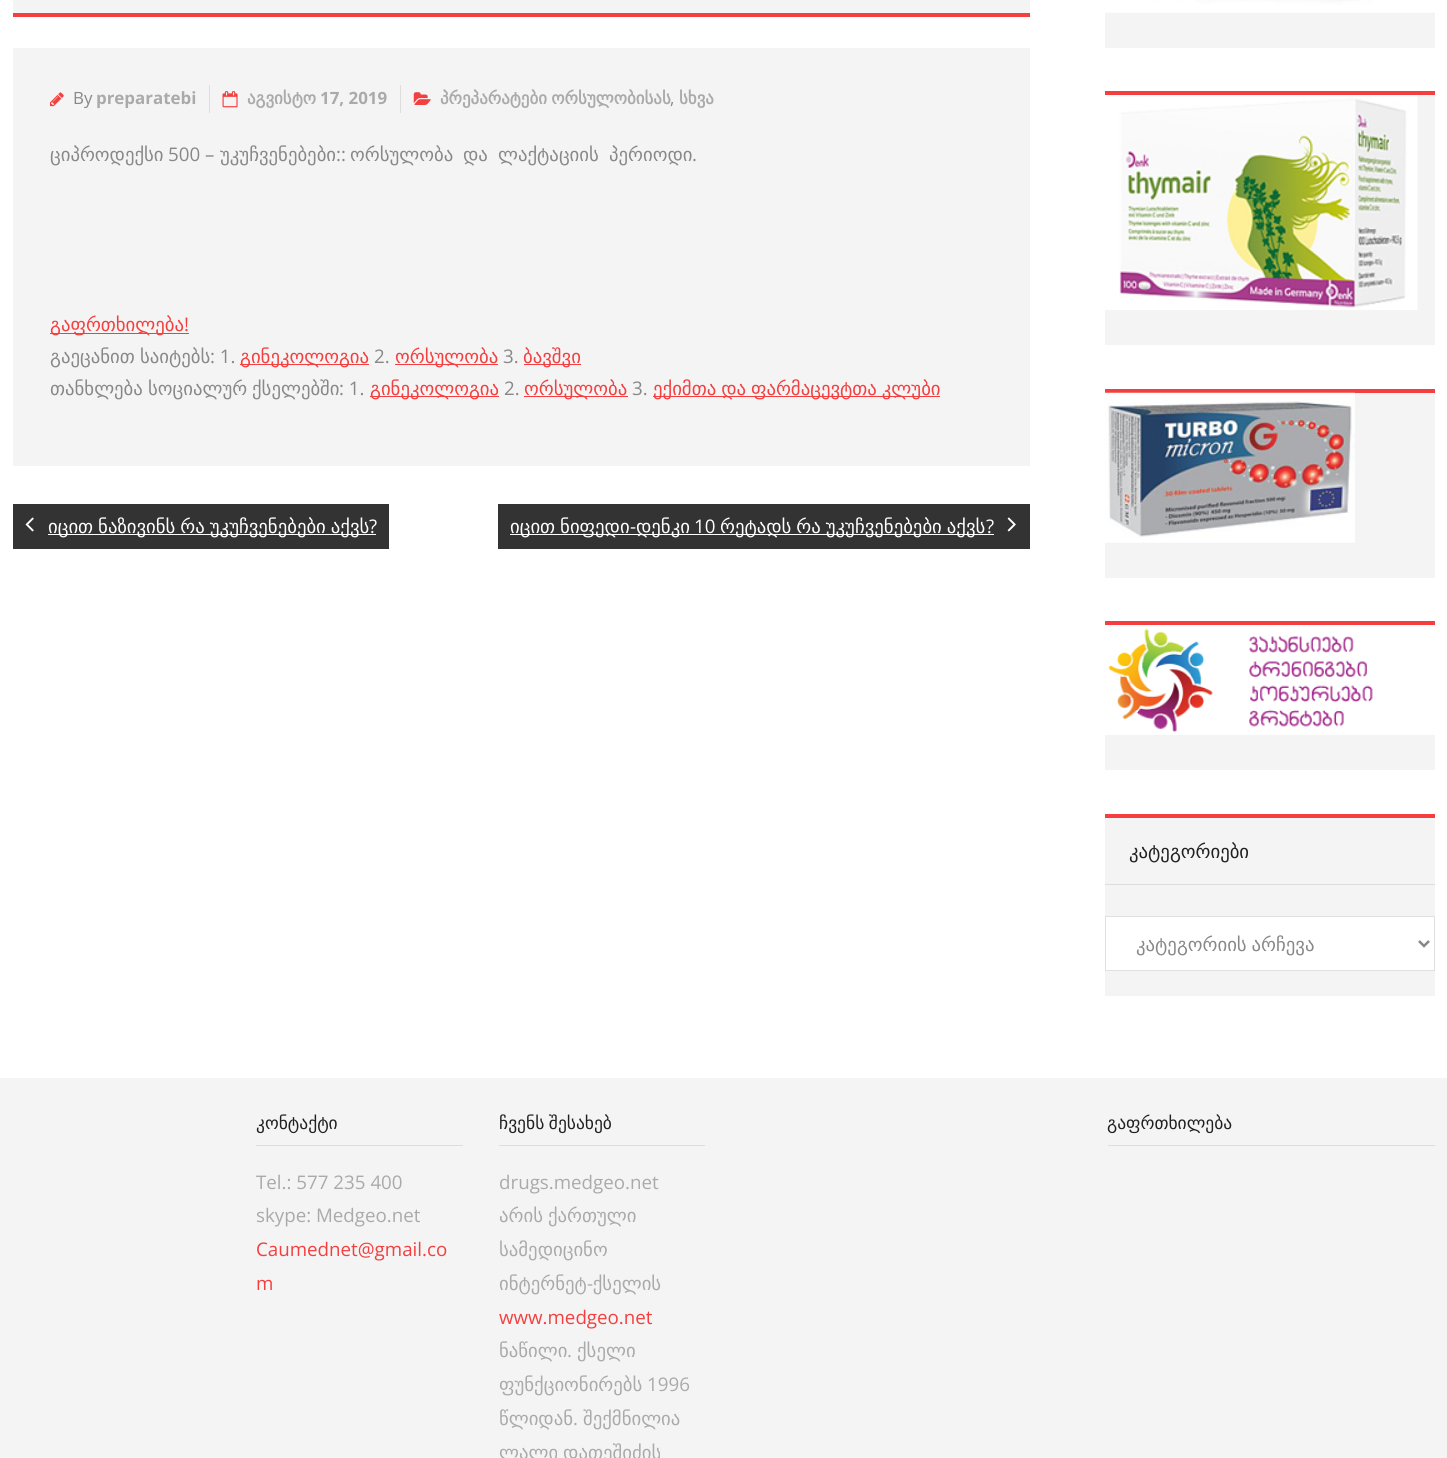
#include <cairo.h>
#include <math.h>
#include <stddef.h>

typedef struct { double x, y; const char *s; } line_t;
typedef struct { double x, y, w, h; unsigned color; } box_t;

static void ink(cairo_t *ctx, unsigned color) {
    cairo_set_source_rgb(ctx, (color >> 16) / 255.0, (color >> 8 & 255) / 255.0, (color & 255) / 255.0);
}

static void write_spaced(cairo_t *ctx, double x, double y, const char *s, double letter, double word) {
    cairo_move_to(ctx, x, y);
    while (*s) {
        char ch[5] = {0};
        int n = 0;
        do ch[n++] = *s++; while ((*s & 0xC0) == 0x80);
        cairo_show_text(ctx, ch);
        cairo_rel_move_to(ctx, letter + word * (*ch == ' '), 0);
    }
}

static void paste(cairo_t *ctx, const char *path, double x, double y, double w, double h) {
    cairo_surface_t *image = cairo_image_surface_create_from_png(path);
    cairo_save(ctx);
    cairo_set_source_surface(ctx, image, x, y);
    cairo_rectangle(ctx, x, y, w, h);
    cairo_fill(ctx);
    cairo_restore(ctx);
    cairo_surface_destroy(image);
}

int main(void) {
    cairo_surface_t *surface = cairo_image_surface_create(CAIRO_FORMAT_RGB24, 1447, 1458);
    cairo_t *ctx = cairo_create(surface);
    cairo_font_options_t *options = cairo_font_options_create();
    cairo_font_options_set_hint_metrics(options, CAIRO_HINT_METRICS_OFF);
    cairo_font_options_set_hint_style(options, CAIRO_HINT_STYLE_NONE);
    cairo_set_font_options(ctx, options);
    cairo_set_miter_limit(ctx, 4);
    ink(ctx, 0xFFFFFF);
    cairo_paint(ctx);
    {
        static const box_t items[] = {
            {13, 0, 1017, 13, 0xF4F4F4},
            {13, 13, 1017, 4, 0xF33F3F},
            {13, 48, 1017, 418, 0xF4F4F4},
            {209, 85, 1, 28, 0xDDDDDD},
        };
        for (size_t i = 0; i < sizeof items / sizeof *items; i++) {
            ink(ctx, items[i].color);
            cairo_rectangle(ctx, items[i].x, items[i].y, items[i].w, items[i].h);
            cairo_fill(ctx);
        }
    }
    paste(ctx, "media/1.png", 50, 92, 14, 15);
    cairo_select_font_face(ctx, "Open Sans", CAIRO_FONT_SLANT_NORMAL, CAIRO_FONT_WEIGHT_NORMAL);
    cairo_set_font_size(ctx, 16.9);
    ink(ctx, 0x888888);
    cairo_move_to(ctx, 73, 104);
    cairo_show_text(ctx, "By");
    cairo_select_font_face(ctx, "Open Sans", CAIRO_FONT_SLANT_NORMAL, CAIRO_FONT_WEIGHT_BOLD);
    ink(ctx, 0xAAAAAA);
    cairo_move_to(ctx, 96, 104);
    cairo_show_text(ctx, "preparatebi");
    ink(ctx, 0xDDDDDD);
    cairo_rectangle(ctx, 400, 85, 1, 28);
    cairo_fill(ctx);
    paste(ctx, "media/2.png", 222, 91, 16, 17);
    cairo_select_font_face(ctx, "DejaVu Sans", CAIRO_FONT_SLANT_NORMAL, CAIRO_FONT_WEIGHT_BOLD);
    ink(ctx, 0xAAAAAA);
    cairo_move_to(ctx, 247, 104);
    cairo_show_text(ctx, "აგვისტო");
    cairo_select_font_face(ctx, "Open Sans", CAIRO_FONT_SLANT_NORMAL, CAIRO_FONT_WEIGHT_BOLD);
    cairo_move_to(ctx, 320, 104);
    cairo_show_text(ctx, "17, 2019");
    paste(ctx, "media/3.png", 413, 92, 18, 13);
    cairo_select_font_face(ctx, "DejaVu Sans", CAIRO_FONT_SLANT_NORMAL, CAIRO_FONT_WEIGHT_BOLD);
    write_spaced(ctx, 440, 104, "პრეპარატები ორსულობისას", 0, -1);
    cairo_select_font_face(ctx, "Open Sans", CAIRO_FONT_SLANT_NORMAL, CAIRO_FONT_WEIGHT_NORMAL);
    ink(ctx, 0x888888);
    cairo_move_to(ctx, 670, 104);
    cairo_show_text(ctx, ",");
    cairo_select_font_face(ctx, "DejaVu Sans", CAIRO_FONT_SLANT_NORMAL, CAIRO_FONT_WEIGHT_BOLD);
    ink(ctx, 0xAAAAAA);
    cairo_move_to(ctx, 679, 104);
    cairo_show_text(ctx, "სხვა");
    cairo_select_font_face(ctx, "DejaVu Sans", CAIRO_FONT_SLANT_NORMAL, CAIRO_FONT_WEIGHT_NORMAL);
    cairo_set_font_size(ctx, 18.75);
    ink(ctx, 0x888888);
    cairo_move_to(ctx, 50, 161);
    cairo_show_text(ctx, "ციპროდექსი");
    cairo_select_font_face(ctx, "Open Sans", CAIRO_FONT_SLANT_NORMAL, CAIRO_FONT_WEIGHT_NORMAL);
    cairo_move_to(ctx, 168, 161);
    cairo_show_text(ctx, "500 –");
    cairo_select_font_face(ctx, "DejaVu Sans", CAIRO_FONT_SLANT_NORMAL, CAIRO_FONT_WEIGHT_NORMAL);
    cairo_move_to(ctx, 220, 161);
    cairo_show_text(ctx, "უკუჩვენებები");
    cairo_select_font_face(ctx, "Open Sans", CAIRO_FONT_SLANT_NORMAL, CAIRO_FONT_WEIGHT_NORMAL);
    cairo_move_to(ctx, 336, 161);
    cairo_show_text(ctx, "::");
    cairo_select_font_face(ctx, "DejaVu Sans", CAIRO_FONT_SLANT_NORMAL, CAIRO_FONT_WEIGHT_NORMAL);
    {
        static const line_t items[] = {
            {350, 161, "ორსულობა"},
            {463, 161, "და"},
            {498, 161, "ლაქტაციის"},
            {609, 161, "პერიოდი"},
        };
        for (size_t i = 0; i < sizeof items / sizeof *items; i++) {
            cairo_move_to(ctx, items[i].x, items[i].y);
            cairo_show_text(ctx, items[i].s);
        }
    }
    cairo_select_font_face(ctx, "Open Sans", CAIRO_FONT_SLANT_NORMAL, CAIRO_FONT_WEIGHT_NORMAL);
    cairo_move_to(ctx, 692, 161);
    cairo_show_text(ctx, ".");
    ink(ctx, 0xF33F3F);
    cairo_rectangle(ctx, 50, 333, 139, 1);
    cairo_fill(ctx);
    cairo_select_font_face(ctx, "DejaVu Sans", CAIRO_FONT_SLANT_NORMAL, CAIRO_FONT_WEIGHT_NORMAL);
    cairo_move_to(ctx, 50, 331);
    cairo_show_text(ctx, "გაფრთხილება");
    cairo_select_font_face(ctx, "Open Sans", CAIRO_FONT_SLANT_NORMAL, CAIRO_FONT_WEIGHT_NORMAL);
    cairo_move_to(ctx, 184, 331);
    cairo_show_text(ctx, "!");
    cairo_select_font_face(ctx, "DejaVu Sans", CAIRO_FONT_SLANT_NORMAL, CAIRO_FONT_WEIGHT_NORMAL);
    ink(ctx, 0x888888);
    cairo_move_to(ctx, 50, 363);
    cairo_show_text(ctx, "გაეცანით");
    cairo_move_to(ctx, 140, 363);
    cairo_show_text(ctx, "საიტებს");
    cairo_select_font_face(ctx, "Open Sans", CAIRO_FONT_SLANT_NORMAL, CAIRO_FONT_WEIGHT_NORMAL);
    cairo_move_to(ctx, 210, 363);
    cairo_show_text(ctx, ": 1.");
    ink(ctx, 0xF33F3F);
    cairo_rectangle(ctx, 240, 364, 129, 1);
    cairo_fill(ctx);
    cairo_select_font_face(ctx, "DejaVu Sans", CAIRO_FONT_SLANT_NORMAL, CAIRO_FONT_WEIGHT_NORMAL);
    cairo_move_to(ctx, 240, 363);
    cairo_show_text(ctx, "გინეკოლოგია");
    cairo_select_font_face(ctx, "Open Sans", CAIRO_FONT_SLANT_NORMAL, CAIRO_FONT_WEIGHT_NORMAL);
    ink(ctx, 0x888888);
    cairo_move_to(ctx, 374, 363);
    cairo_show_text(ctx, "2.");
    ink(ctx, 0xF33F3F);
    cairo_rectangle(ctx, 395, 364, 103, 1);
    cairo_fill(ctx);
    cairo_select_font_face(ctx, "DejaVu Sans", CAIRO_FONT_SLANT_NORMAL, CAIRO_FONT_WEIGHT_NORMAL);
    cairo_move_to(ctx, 395, 363);
    cairo_show_text(ctx, "ორსულობა");
    cairo_select_font_face(ctx, "Open Sans", CAIRO_FONT_SLANT_NORMAL, CAIRO_FONT_WEIGHT_NORMAL);
    ink(ctx, 0x888888);
    cairo_move_to(ctx, 503, 363);
    cairo_show_text(ctx, "3.");
    ink(ctx, 0xF33F3F);
    cairo_rectangle(ctx, 524, 364, 57, 1);
    cairo_fill(ctx);
    cairo_select_font_face(ctx, "DejaVu Sans", CAIRO_FONT_SLANT_NORMAL, CAIRO_FONT_WEIGHT_NORMAL);
    cairo_move_to(ctx, 523, 363);
    cairo_show_text(ctx, "ბავშვი");
    ink(ctx, 0x888888);
    {
        static const line_t items[] = {
            {50, 395, "თანხლება"},
            {148, 395, "სოციალურ"},
            {252, 395, "ქსელებში"},
        };
        for (size_t i = 0; i < sizeof items / sizeof *items; i++) {
            cairo_move_to(ctx, items[i].x, items[i].y);
            cairo_show_text(ctx, items[i].s);
        }
    }
    cairo_select_font_face(ctx, "Open Sans", CAIRO_FONT_SLANT_NORMAL, CAIRO_FONT_WEIGHT_NORMAL);
    cairo_move_to(ctx, 339, 395);
    cairo_show_text(ctx, ": 1.");
    ink(ctx, 0xF33F3F);
    cairo_rectangle(ctx, 370, 396, 129, 1);
    cairo_fill(ctx);
    cairo_select_font_face(ctx, "DejaVu Sans", CAIRO_FONT_SLANT_NORMAL, CAIRO_FONT_WEIGHT_NORMAL);
    cairo_move_to(ctx, 370, 395);
    cairo_show_text(ctx, "გინეკოლოგია");
    cairo_select_font_face(ctx, "Open Sans", CAIRO_FONT_SLANT_NORMAL, CAIRO_FONT_WEIGHT_NORMAL);
    ink(ctx, 0x888888);
    cairo_move_to(ctx, 504, 395);
    cairo_show_text(ctx, "2.");
    ink(ctx, 0xF33F3F);
    cairo_rectangle(ctx, 524, 396, 104, 1);
    cairo_fill(ctx);
    cairo_select_font_face(ctx, "DejaVu Sans", CAIRO_FONT_SLANT_NORMAL, CAIRO_FONT_WEIGHT_NORMAL);
    cairo_move_to(ctx, 524, 395);
    cairo_show_text(ctx, "ორსულობა");
    cairo_select_font_face(ctx, "Open Sans", CAIRO_FONT_SLANT_NORMAL, CAIRO_FONT_WEIGHT_NORMAL);
    ink(ctx, 0x888888);
    cairo_move_to(ctx, 632, 395);
    cairo_show_text(ctx, "3.");
    ink(ctx, 0xF33F3F);
    cairo_rectangle(ctx, 653, 396, 287, 1);
    cairo_fill(ctx);
    cairo_select_font_face(ctx, "DejaVu Sans", CAIRO_FONT_SLANT_NORMAL, CAIRO_FONT_WEIGHT_NORMAL);
    write_spaced(ctx, 653, 395, "ექიმთა და ფარმაცევტთა კლუბი", 0, -1);
    ink(ctx, 0x333333);
    cairo_rectangle(ctx, 13, 504, 376, 45);
    cairo_fill(ctx);
    paste(ctx, "media/4.png", 25, 517, 9, 15);
    ink(ctx, 0xFFFFFF);
    cairo_rectangle(ctx, 48, 534, 328, 1);
    cairo_fill(ctx);
    write_spaced(ctx, 48, 533, "იცით ნაზივინს რა უკუჩვენებები აქვს", 0, -1);
    cairo_select_font_face(ctx, "Open Sans", CAIRO_FONT_SLANT_NORMAL, CAIRO_FONT_WEIGHT_NORMAL);
    cairo_move_to(ctx, 369, 533);
    cairo_show_text(ctx, "?");
    ink(ctx, 0x333333);
    cairo_rectangle(ctx, 498, 504, 532, 45);
    cairo_fill(ctx);
    ink(ctx, 0xFFFFFF);
    cairo_rectangle(ctx, 510, 534, 484, 1);
    cairo_fill(ctx);
    cairo_select_font_face(ctx, "DejaVu Sans", CAIRO_FONT_SLANT_NORMAL, CAIRO_FONT_WEIGHT_NORMAL);
    write_spaced(ctx, 510, 533, "იცით ნიფედი", 0, -1);
    cairo_select_font_face(ctx, "Open Sans", CAIRO_FONT_SLANT_NORMAL, CAIRO_FONT_WEIGHT_NORMAL);
    cairo_move_to(ctx, 630, 533);
    cairo_show_text(ctx, "-");
    cairo_select_font_face(ctx, "DejaVu Sans", CAIRO_FONT_SLANT_NORMAL, CAIRO_FONT_WEIGHT_NORMAL);
    cairo_move_to(ctx, 636, 533);
    cairo_show_text(ctx, "დენკი");
    cairo_select_font_face(ctx, "Open Sans", CAIRO_FONT_SLANT_NORMAL, CAIRO_FONT_WEIGHT_NORMAL);
    cairo_move_to(ctx, 694, 533);
    cairo_show_text(ctx, "10");
    cairo_select_font_face(ctx, "DejaVu Sans", CAIRO_FONT_SLANT_NORMAL, CAIRO_FONT_WEIGHT_NORMAL);
    write_spaced(ctx, 720, 533, "რეტადს რა უკუჩვენებები აქვს", 0, -1);
    cairo_select_font_face(ctx, "Open Sans", CAIRO_FONT_SLANT_NORMAL, CAIRO_FONT_WEIGHT_NORMAL);
    cairo_move_to(ctx, 986, 533);
    cairo_show_text(ctx, "?");
    paste(ctx, "media/5.png", 1007, 517, 9, 15);
    ink(ctx, 0xF4F4F4);
    cairo_rectangle(ctx, 1105, 12, 330, 36);
    cairo_fill(ctx);
    paste(ctx, "media/6.png", 1105, 0, 330, 13);
    cairo_rectangle(ctx, 1105, 95, 330, 250);
    cairo_fill(ctx);
    ink(ctx, 0xF33F3F);
    cairo_rectangle(ctx, 1105, 91, 330, 4);
    cairo_fill(ctx);
    paste(ctx, "media/7.png", 1105, 95, 313, 215);
    ink(ctx, 0xF4F4F4);
    cairo_rectangle(ctx, 1105, 393, 330, 185);
    cairo_fill(ctx);
    ink(ctx, 0xF33F3F);
    cairo_rectangle(ctx, 1105, 389, 330, 4);
    cairo_fill(ctx);
    paste(ctx, "media/8.png", 1105, 392, 250, 151);
    ink(ctx, 0xF4F4F4);
    cairo_rectangle(ctx, 1105, 625, 330, 145);
    cairo_fill(ctx);
    ink(ctx, 0xF33F3F);
    cairo_rectangle(ctx, 1105, 621, 330, 4);
    cairo_fill(ctx);
    paste(ctx, "media/9.png", 1105, 625, 330, 110);
    {
        static const box_t items[] = {
            {1105, 818, 330, 178, 0xF4F4F4},
            {1105, 814, 330, 4, 0xF33F3F},
            {1105, 884, 330, 1, 0xDDDDDD},
        };
        for (size_t i = 0; i < sizeof items / sizeof *items; i++) {
            ink(ctx, items[i].color);
            cairo_rectangle(ctx, items[i].x, items[i].y, items[i].w, items[i].h);
            cairo_fill(ctx);
        }
    }
    cairo_select_font_face(ctx, "DejaVu Sans", CAIRO_FONT_SLANT_NORMAL, CAIRO_FONT_WEIGHT_NORMAL);
    ink(ctx, 0x202020);
    cairo_move_to(ctx, 1129, 858);
    cairo_show_text(ctx, "კატეგორიები");
    ink(ctx, 0xFFFFFF);
    cairo_rectangle(ctx, 1105.5, 916.5, 329, 54);
    cairo_fill_preserve(ctx);
    ink(ctx, 0xE0E0E0);
    cairo_set_line_width(ctx, 1);
    cairo_stroke(ctx);
    cairo_new_path(ctx);
    cairo_move_to(ctx, 1419, 941);
    cairo_line_to(ctx, 1424, 946);
    cairo_line_to(ctx, 1429, 941);
    ink(ctx, 0x888888);
    cairo_set_line_width(ctx, 2.5);
    cairo_stroke(ctx);
    write_spaced(ctx, 1136, 951, "კატეგორიის არჩევა", 0, -1);
    ink(ctx, 0xF4F4F4);
    cairo_rectangle(ctx, 0, 1078, 1447, 380);
    cairo_fill(ctx);
    ink(ctx, 0xDDDDDD);
    cairo_rectangle(ctx, 256, 1145, 207, 1);
    cairo_fill(ctx);
    cairo_set_font_size(ctx, 17.5);
    ink(ctx, 0x202020);
    cairo_move_to(ctx, 256, 1129);
    cairo_show_text(ctx, "კონტაქტი");
    cairo_select_font_face(ctx, "Open Sans", CAIRO_FONT_SLANT_NORMAL, CAIRO_FONT_WEIGHT_NORMAL);
    cairo_set_font_size(ctx, 18.75);
    ink(ctx, 0xAAAAAA);
    cairo_move_to(ctx, 256, 1189);
    cairo_show_text(ctx, "Tel.: 577 235 400");
    cairo_move_to(ctx, 256, 1222);
    cairo_show_text(ctx, "skype: Medgeo.net");
    ink(ctx, 0xF33F3F);
    cairo_move_to(ctx, 256, 1256);
    cairo_show_text(ctx, "Caumednet@gmail.co");
    cairo_move_to(ctx, 256, 1290);
    cairo_show_text(ctx, "m");
    ink(ctx, 0xDDDDDD);
    cairo_rectangle(ctx, 499, 1145, 206, 1);
    cairo_fill(ctx);
    cairo_select_font_face(ctx, "DejaVu Sans", CAIRO_FONT_SLANT_NORMAL, CAIRO_FONT_WEIGHT_NORMAL);
    cairo_set_font_size(ctx, 17.5);
    ink(ctx, 0x202020);
    write_spaced(ctx, 499, 1129, "ჩვენს შესახებ", 0, -1);
    cairo_select_font_face(ctx, "Open Sans", CAIRO_FONT_SLANT_NORMAL, CAIRO_FONT_WEIGHT_NORMAL);
    cairo_set_font_size(ctx, 18.75);
    ink(ctx, 0xAAAAAA);
    cairo_move_to(ctx, 499, 1189);
    cairo_show_text(ctx, "drugs.medgeo.net");
    cairo_select_font_face(ctx, "DejaVu Sans", CAIRO_FONT_SLANT_NORMAL, CAIRO_FONT_WEIGHT_NORMAL);
    write_spaced(ctx, 499, 1222, "არის ქართული", 0, -1);
    cairo_move_to(ctx, 499, 1256);
    cairo_show_text(ctx, "სამედიცინო");
    cairo_move_to(ctx, 499, 1290);
    cairo_show_text(ctx, "ინტერნეტ ქსელის");
    cairo_select_font_face(ctx, "Open Sans", CAIRO_FONT_SLANT_NORMAL, CAIRO_FONT_WEIGHT_NORMAL);
    cairo_move_to(ctx, 587, 1290);
    cairo_show_text(ctx, "-");
    ink(ctx, 0xF33F3F);
    cairo_move_to(ctx, 499, 1324);
    cairo_show_text(ctx, "www.medgeo.net");
    cairo_select_font_face(ctx, "DejaVu Sans", CAIRO_FONT_SLANT_NORMAL, CAIRO_FONT_WEIGHT_NORMAL);
    ink(ctx, 0xAAAAAA);
    cairo_move_to(ctx, 499, 1357);
    cairo_show_text(ctx, "ნაწილი");
    cairo_select_font_face(ctx, "Open Sans", CAIRO_FONT_SLANT_NORMAL, CAIRO_FONT_WEIGHT_NORMAL);
    cairo_move_to(ctx, 567, 1357);
    cairo_show_text(ctx, ".");
    cairo_select_font_face(ctx, "DejaVu Sans", CAIRO_FONT_SLANT_NORMAL, CAIRO_FONT_WEIGHT_NORMAL);
    cairo_move_to(ctx, 577, 1357);
    cairo_show_text(ctx, "ქსელი");
    cairo_move_to(ctx, 499, 1391);
    cairo_show_text(ctx, "ფუნქციონირებს");
    cairo_select_font_face(ctx, "Open Sans", CAIRO_FONT_SLANT_NORMAL, CAIRO_FONT_WEIGHT_NORMAL);
    cairo_move_to(ctx, 647, 1391);
    cairo_show_text(ctx, "1996");
    cairo_select_font_face(ctx, "DejaVu Sans", CAIRO_FONT_SLANT_NORMAL, CAIRO_FONT_WEIGHT_NORMAL);
    cairo_move_to(ctx, 499, 1425);
    cairo_show_text(ctx, "წლიდან");
    cairo_select_font_face(ctx, "Open Sans", CAIRO_FONT_SLANT_NORMAL, CAIRO_FONT_WEIGHT_NORMAL);
    cairo_move_to(ctx, 573, 1425);
    cairo_show_text(ctx, ".");
    cairo_select_font_face(ctx, "DejaVu Sans", CAIRO_FONT_SLANT_NORMAL, CAIRO_FONT_WEIGHT_NORMAL);
    cairo_move_to(ctx, 583, 1425);
    cairo_show_text(ctx, "შექმნილია");
    write_spaced(ctx, 499, 1459, "ლალი დათეშიძის", 0, -1);
    ink(ctx, 0xDDDDDD);
    cairo_rectangle(ctx, 1108, 1145, 327, 1);
    cairo_fill(ctx);
    cairo_set_font_size(ctx, 17.5);
    ink(ctx, 0x202020);
    cairo_move_to(ctx, 1107, 1129);
    cairo_show_text(ctx, "გაფრთხილება");
    cairo_surface_write_to_png(surface, "image.png");
    cairo_font_options_destroy(options);
    cairo_destroy(ctx);
    cairo_surface_destroy(surface);
    return 0;
}
